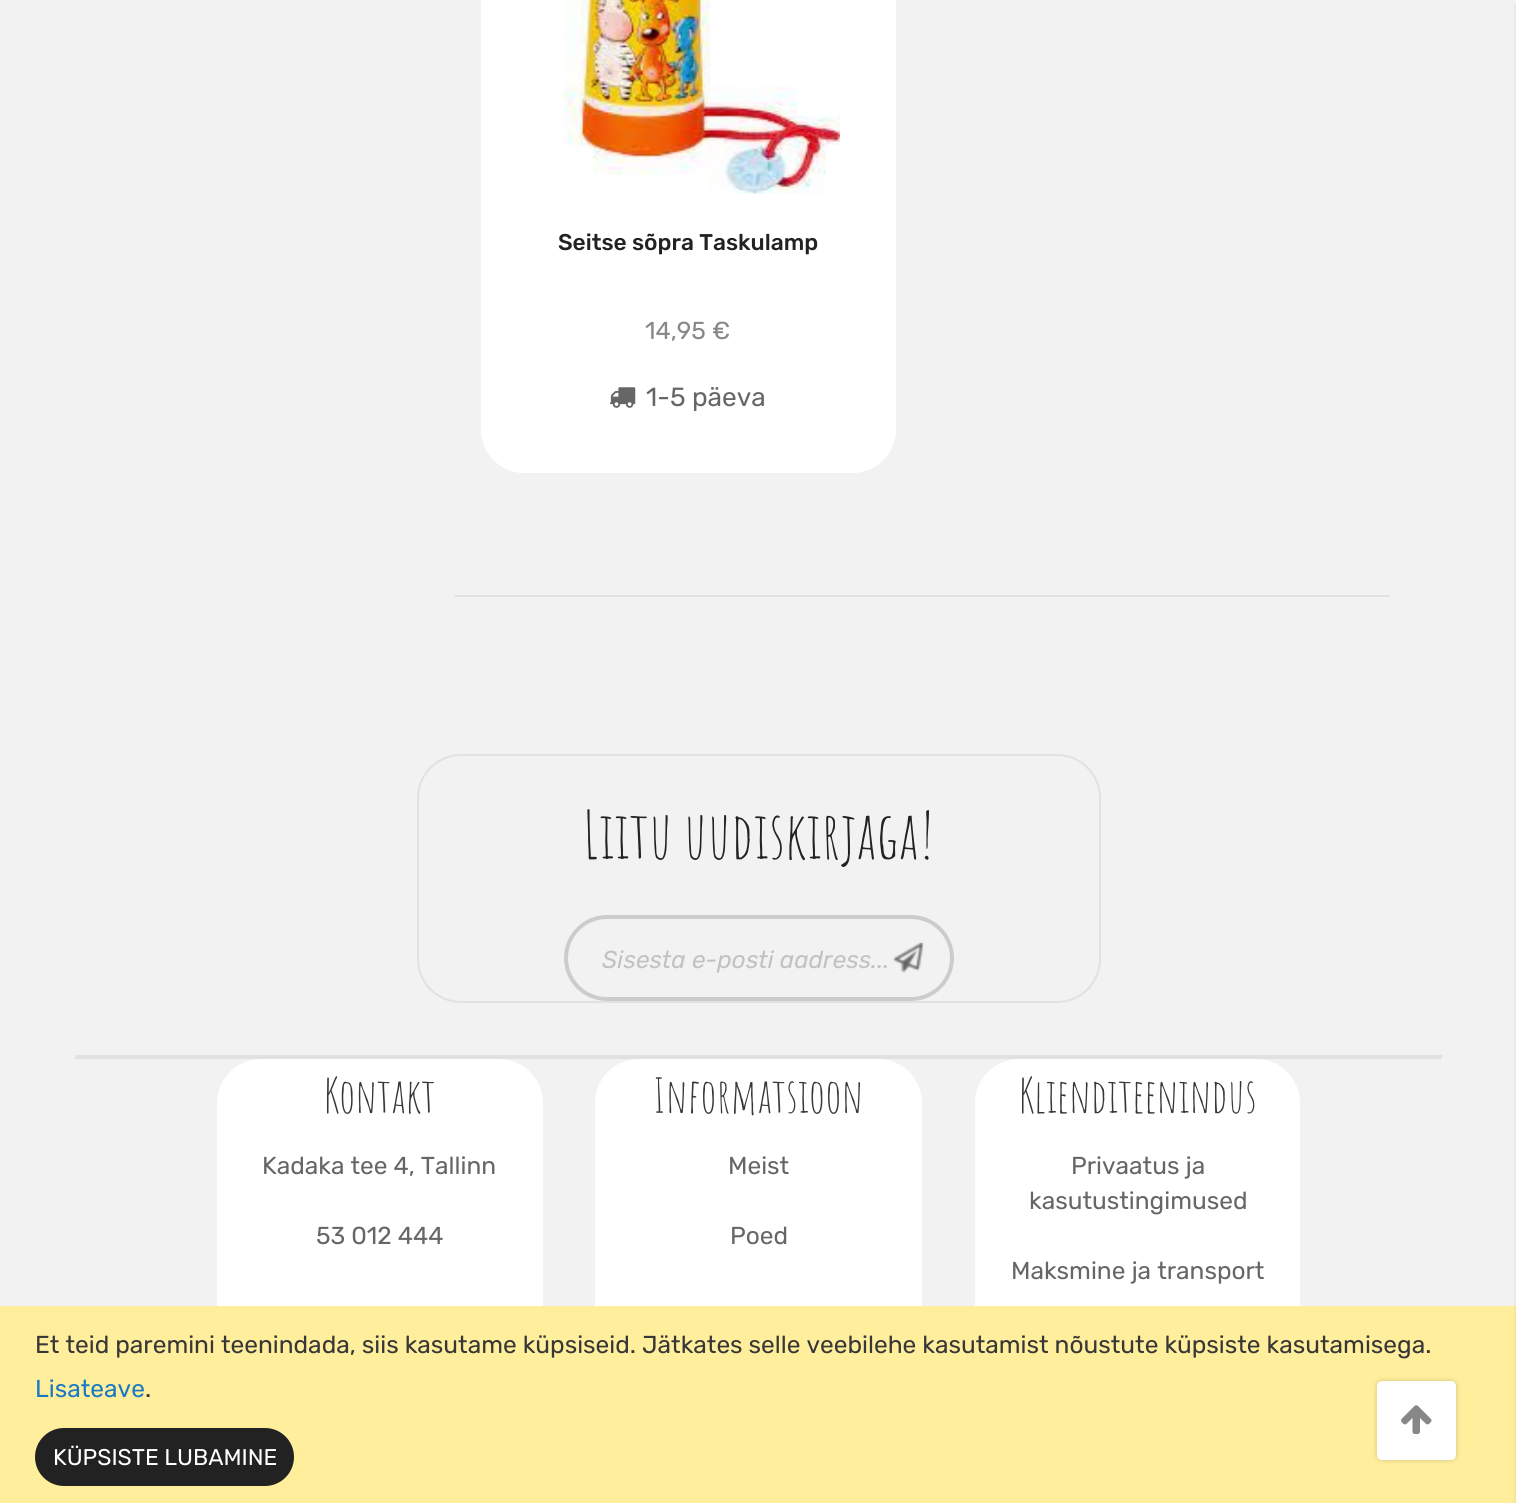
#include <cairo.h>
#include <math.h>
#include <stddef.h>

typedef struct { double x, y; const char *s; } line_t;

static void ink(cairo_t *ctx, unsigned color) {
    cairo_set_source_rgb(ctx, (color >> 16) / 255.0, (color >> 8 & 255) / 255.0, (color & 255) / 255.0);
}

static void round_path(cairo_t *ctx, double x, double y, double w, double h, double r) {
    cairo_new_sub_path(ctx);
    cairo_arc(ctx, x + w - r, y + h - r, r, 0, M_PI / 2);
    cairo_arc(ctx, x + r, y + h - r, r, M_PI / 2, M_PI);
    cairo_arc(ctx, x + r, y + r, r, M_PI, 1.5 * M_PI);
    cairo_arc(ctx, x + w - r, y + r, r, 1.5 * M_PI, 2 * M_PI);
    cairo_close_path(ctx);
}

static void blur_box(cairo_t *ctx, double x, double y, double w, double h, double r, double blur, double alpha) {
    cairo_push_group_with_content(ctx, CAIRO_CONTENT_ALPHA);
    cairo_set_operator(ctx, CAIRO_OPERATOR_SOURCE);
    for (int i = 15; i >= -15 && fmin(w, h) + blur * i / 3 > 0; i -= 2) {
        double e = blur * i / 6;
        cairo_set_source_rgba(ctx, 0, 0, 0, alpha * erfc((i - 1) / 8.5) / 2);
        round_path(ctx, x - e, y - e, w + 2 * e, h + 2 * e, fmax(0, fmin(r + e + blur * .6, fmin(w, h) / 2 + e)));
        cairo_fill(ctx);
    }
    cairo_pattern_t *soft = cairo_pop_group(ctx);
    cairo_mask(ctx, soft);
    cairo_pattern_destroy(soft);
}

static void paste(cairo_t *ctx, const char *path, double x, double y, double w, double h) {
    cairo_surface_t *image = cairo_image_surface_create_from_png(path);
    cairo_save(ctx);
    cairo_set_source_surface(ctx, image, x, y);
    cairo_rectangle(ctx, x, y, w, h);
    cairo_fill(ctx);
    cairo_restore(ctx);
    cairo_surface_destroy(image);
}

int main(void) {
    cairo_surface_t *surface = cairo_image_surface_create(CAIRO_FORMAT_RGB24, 1516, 1503);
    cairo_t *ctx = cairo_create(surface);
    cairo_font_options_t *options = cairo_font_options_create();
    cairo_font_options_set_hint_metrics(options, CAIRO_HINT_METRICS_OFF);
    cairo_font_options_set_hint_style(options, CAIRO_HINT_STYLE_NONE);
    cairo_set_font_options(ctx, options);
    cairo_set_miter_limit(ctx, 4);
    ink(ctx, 0xF2F2F2);
    cairo_paint(ctx);
    ink(ctx, 0xFFFFFF);
    round_path(ctx, 481, -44, 415, 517, 44);
    cairo_fill(ctx);
    paste(ctx, "media/1.png", 563, 0, 277, 194);
    cairo_new_path(ctx);
    cairo_move_to(ctx, 481, 207);
    cairo_line_to(ctx, 896, 207);
    cairo_line_to(ctx, 896, 429);
    cairo_curve_to(ctx, 896, 453.5, 876.5, 473, 852, 473);
    cairo_line_to(ctx, 525, 473);
    cairo_curve_to(ctx, 500.5, 473, 481, 453.5, 481, 429);
    cairo_close_path(ctx);
    cairo_fill(ctx);
    cairo_select_font_face(ctx, "Rubik Medium", CAIRO_FONT_SLANT_NORMAL, CAIRO_FONT_WEIGHT_NORMAL);
    cairo_set_font_size(ctx, 22.75);
    ink(ctx, 0x222222);
    cairo_move_to(ctx, 558, 250);
    cairo_show_text(ctx, "Seitse sõpra Taskulamp");
    cairo_select_font_face(ctx, "Rubik", CAIRO_FONT_SLANT_NORMAL, CAIRO_FONT_WEIGHT_NORMAL);
    cairo_set_font_size(ctx, 24.5);
    ink(ctx, 0x888888);
    cairo_move_to(ctx, 645, 339);
    cairo_show_text(ctx, "14,95 €");
    paste(ctx, "media/2.png", 610, 387, 26, 21);
    cairo_set_font_size(ctx, 26.25);
    ink(ctx, 0x666666);
    cairo_move_to(ctx, 646, 406);
    cairo_show_text(ctx, "1-5 päeva");
    ink(ctx, 0xE1E1E1);
    cairo_rectangle(ctx, 455, 595, 935, 2);
    cairo_fill(ctx);
    ink(ctx, 0xFFFFFF);
    round_path(ctx, 217, 1059, 326, 336, 44);
    cairo_fill(ctx);
    round_path(ctx, 217, 1115, 326, 280, 44);
    cairo_fill(ctx);
    round_path(ctx, 595, 1059, 327, 336, 44);
    cairo_fill(ctx);
    round_path(ctx, 595, 1115, 327, 280, 44);
    cairo_fill(ctx);
    round_path(ctx, 975, 1059, 325, 371, 44);
    cairo_fill(ctx);
    round_path(ctx, 975, 1115, 325, 315, 44);
    cairo_fill(ctx);
    ink(ctx, 0xFFEE9C);
    cairo_rectangle(ctx, 0, 1306, 1516, 197);
    cairo_fill(ctx);
    ink(ctx, 0x000000);
    blur_box(ctx, 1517, 5, 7, 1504, 0, 2.5, 0.15);
    round_path(ctx, 418, 755, 682, 247, 43);
    ink(ctx, 0xE1E1E1);
    cairo_stroke(ctx);
    cairo_select_font_face(ctx, "Amatic SC", CAIRO_FONT_SLANT_NORMAL, CAIRO_FONT_WEIGHT_NORMAL);
    cairo_set_font_size(ctx, 64.75);
    ink(ctx, 0x222222);
    cairo_move_to(ctx, 583, 859);
    cairo_show_text(ctx, "Liitu uudiskirjaga!");
    round_path(ctx, 566, 917, 386, 82, 41);
    ink(ctx, 0xCCCCCC);
    cairo_set_line_width(ctx, 4);
    cairo_stroke(ctx);
    cairo_select_font_face(ctx, "Rubik", CAIRO_FONT_SLANT_ITALIC, CAIRO_FONT_WEIGHT_NORMAL);
    cairo_set_font_size(ctx, 24.5);
    ink(ctx, 0xC2C2C2);
    cairo_move_to(ctx, 602, 968);
    cairo_show_text(ctx, "Sisesta e-posti aadress...");
    paste(ctx, "media/3.png", 893, 942, 31, 31);
    ink(ctx, 0xE1E1E1);
    cairo_rectangle(ctx, 75, 1055, 1367, 4);
    cairo_fill(ctx);
    cairo_select_font_face(ctx, "Amatic SC", CAIRO_FONT_SLANT_NORMAL, CAIRO_FONT_WEIGHT_NORMAL);
    cairo_set_font_size(ctx, 47.25);
    ink(ctx, 0x373737);
    cairo_move_to(ctx, 324, 1113);
    cairo_show_text(ctx, "Kontakt");
    cairo_select_font_face(ctx, "Rubik", CAIRO_FONT_SLANT_NORMAL, CAIRO_FONT_WEIGHT_NORMAL);
    cairo_set_font_size(ctx, 24.5);
    ink(ctx, 0x666666);
    cairo_move_to(ctx, 262, 1174);
    cairo_show_text(ctx, "Kadaka tee 4, Tallinn");
    cairo_move_to(ctx, 316, 1244);
    cairo_show_text(ctx, "53 012 444");
    cairo_select_font_face(ctx, "Amatic SC", CAIRO_FONT_SLANT_NORMAL, CAIRO_FONT_WEIGHT_NORMAL);
    cairo_set_font_size(ctx, 47.25);
    ink(ctx, 0x373737);
    cairo_move_to(ctx, 653, 1113);
    cairo_show_text(ctx, "Informatsioon");
    cairo_select_font_face(ctx, "Rubik", CAIRO_FONT_SLANT_NORMAL, CAIRO_FONT_WEIGHT_NORMAL);
    cairo_set_font_size(ctx, 24.5);
    ink(ctx, 0x666666);
    cairo_move_to(ctx, 728, 1174);
    cairo_show_text(ctx, "Meist");
    cairo_move_to(ctx, 730, 1244);
    cairo_show_text(ctx, "Poed");
    cairo_select_font_face(ctx, "Amatic SC", CAIRO_FONT_SLANT_NORMAL, CAIRO_FONT_WEIGHT_NORMAL);
    cairo_set_font_size(ctx, 47.25);
    ink(ctx, 0x373737);
    cairo_move_to(ctx, 1019, 1113);
    cairo_show_text(ctx, "Klienditeenindus");
    cairo_select_font_face(ctx, "Rubik", CAIRO_FONT_SLANT_NORMAL, CAIRO_FONT_WEIGHT_NORMAL);
    cairo_set_font_size(ctx, 24.5);
    ink(ctx, 0x666666);
    {
        static const line_t items[] = {
            {1071, 1174, "Privaatus ja"},
            {1029, 1209, "kasutustingimused"},
            {1011, 1279, "Maksmine ja transport"},
        };
        for (size_t i = 0; i < sizeof items / sizeof *items; i++) {
            cairo_move_to(ctx, items[i].x, items[i].y);
            cairo_show_text(ctx, items[i].s);
        }
    }
    ink(ctx, 0x000000);
    blur_box(ctx, 1377, 1381, 79, 79, 5, 2.5, 0.2);
    ink(ctx, 0xFFFFFF);
    round_path(ctx, 1377, 1381, 79, 79, 5);
    cairo_fill(ctx);
    paste(ctx, "media/4.png", 1401, 1405, 31, 29);
    ink(ctx, 0x373737);
    cairo_move_to(ctx, 35, 1353);
    cairo_show_text(ctx, "Et teid paremini teenindada, siis kasutame küpsiseid. Jätkates selle veebilehe kasutamist nõustute küpsiste kasutamisega.");
    ink(ctx, 0x1979C3);
    cairo_move_to(ctx, 35, 1397);
    cairo_show_text(ctx, "Lisateave");
    ink(ctx, 0x373737);
    cairo_move_to(ctx, 145, 1397);
    cairo_show_text(ctx, ".");
    ink(ctx, 0x222222);
    round_path(ctx, 35, 1428, 259, 58, 29);
    cairo_fill(ctx);
    cairo_set_font_size(ctx, 22.75);
    ink(ctx, 0xFFFFFF);
    cairo_move_to(ctx, 53, 1465);
    cairo_show_text(ctx, "KÜPSISTE LUBAMINE");
    cairo_surface_write_to_png(surface, "image.png");
    cairo_font_options_destroy(options);
    cairo_destroy(ctx);
    cairo_surface_destroy(surface);
    return 0;
}
